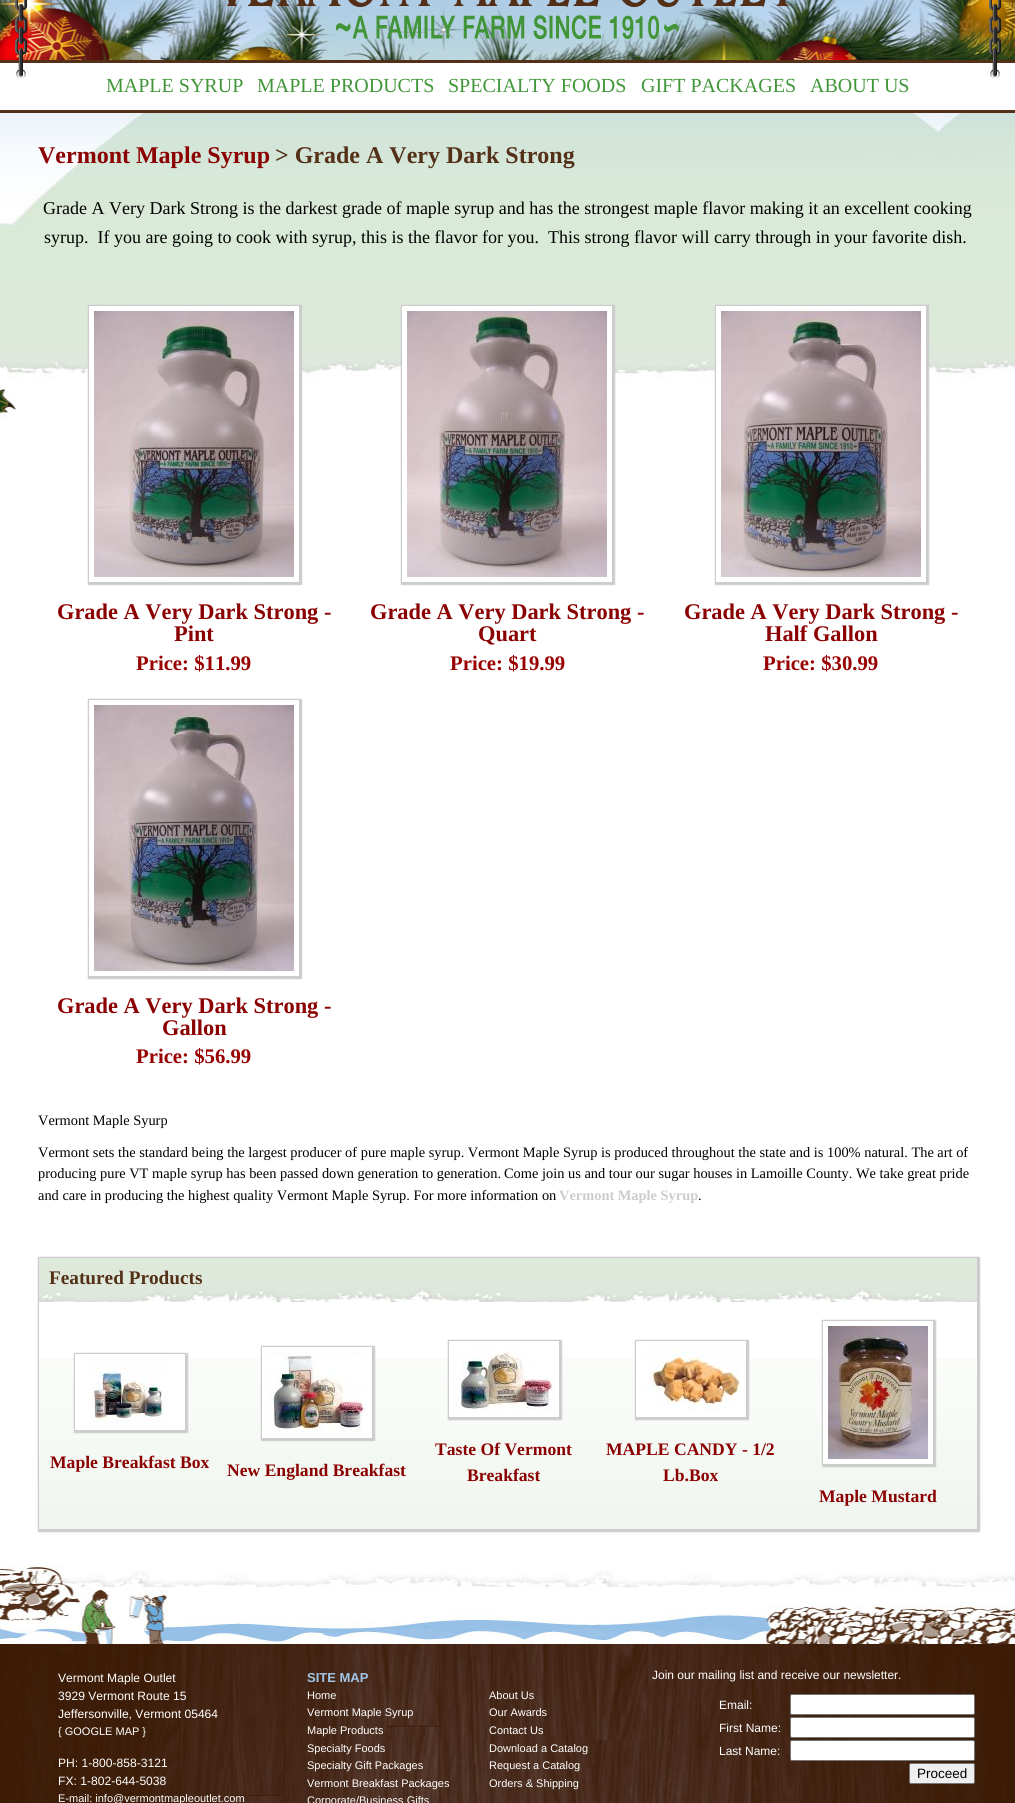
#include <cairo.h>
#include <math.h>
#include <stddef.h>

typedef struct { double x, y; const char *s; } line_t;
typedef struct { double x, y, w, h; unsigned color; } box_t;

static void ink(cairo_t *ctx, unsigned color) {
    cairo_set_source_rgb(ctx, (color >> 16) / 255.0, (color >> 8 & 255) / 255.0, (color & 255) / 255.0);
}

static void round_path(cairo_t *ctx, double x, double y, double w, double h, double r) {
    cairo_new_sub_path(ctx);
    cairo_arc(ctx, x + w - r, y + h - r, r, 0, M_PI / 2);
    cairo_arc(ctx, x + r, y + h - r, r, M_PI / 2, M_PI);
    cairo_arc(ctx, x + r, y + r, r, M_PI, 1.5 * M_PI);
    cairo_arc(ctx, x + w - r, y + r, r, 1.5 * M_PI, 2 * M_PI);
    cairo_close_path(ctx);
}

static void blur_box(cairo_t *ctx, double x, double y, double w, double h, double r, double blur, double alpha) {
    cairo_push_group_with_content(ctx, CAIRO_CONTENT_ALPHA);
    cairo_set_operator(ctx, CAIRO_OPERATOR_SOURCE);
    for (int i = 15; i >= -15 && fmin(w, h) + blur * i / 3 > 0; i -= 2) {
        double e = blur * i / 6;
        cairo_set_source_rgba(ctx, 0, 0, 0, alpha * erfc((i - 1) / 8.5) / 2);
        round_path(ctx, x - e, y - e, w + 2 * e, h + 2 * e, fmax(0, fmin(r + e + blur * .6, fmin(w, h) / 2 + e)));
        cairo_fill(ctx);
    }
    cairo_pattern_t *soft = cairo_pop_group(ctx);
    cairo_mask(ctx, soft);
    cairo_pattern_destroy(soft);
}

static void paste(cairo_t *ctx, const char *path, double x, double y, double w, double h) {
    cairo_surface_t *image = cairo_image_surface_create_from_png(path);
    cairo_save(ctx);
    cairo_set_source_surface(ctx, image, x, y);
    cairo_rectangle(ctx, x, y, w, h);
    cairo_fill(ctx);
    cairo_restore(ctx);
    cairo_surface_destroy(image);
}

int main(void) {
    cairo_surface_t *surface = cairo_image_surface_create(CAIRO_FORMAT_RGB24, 1015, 1803);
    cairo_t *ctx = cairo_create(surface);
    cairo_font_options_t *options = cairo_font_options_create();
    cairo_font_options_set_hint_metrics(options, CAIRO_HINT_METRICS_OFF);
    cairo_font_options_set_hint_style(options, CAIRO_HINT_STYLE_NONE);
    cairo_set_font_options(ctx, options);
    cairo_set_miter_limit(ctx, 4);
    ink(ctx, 0xFFFFFF);
    cairo_paint(ctx);
    paste(ctx, "media/1.png", 0, 0, 1015, 420);
    paste(ctx, "media/2.png", 227, 0, 562, 39);
    {
        static const box_t items[] = {
            {0, 63, 1015, 47, 0xFFFFFF},
            {0, 60, 1015, 3, 0x543019},
            {0, 110, 1015, 3, 0x543019},
        };
        for (size_t i = 0; i < sizeof items / sizeof *items; i++) {
            ink(ctx, items[i].color);
            cairo_rectangle(ctx, items[i].x, items[i].y, items[i].w, items[i].h);
            cairo_fill(ctx);
        }
    }
    paste(ctx, "media/3.png", 15, 0, 12, 79);
    paste(ctx, "media/4.png", 989, 0, 12, 79);
    cairo_select_font_face(ctx, "Liberation Serif", CAIRO_FONT_SLANT_NORMAL, CAIRO_FONT_WEIGHT_NORMAL);
    cairo_set_font_size(ctx, 20);
    ink(ctx, 0x419639);
    {
        static const line_t items[] = {
            {106, 92, "MAPLE SYRUP"},
            {257, 92, "MAPLE PRODUCTS"},
            {448, 92, "SPECIALTY FOODS"},
            {641, 92, "GIFT PACKAGES"},
            {810, 92, "ABOUT US"},
        };
        for (size_t i = 0; i < sizeof items / sizeof *items; i++) {
            cairo_move_to(ctx, items[i].x, items[i].y);
            cairo_show_text(ctx, items[i].s);
        }
    }
    cairo_select_font_face(ctx, "Liberation Serif", CAIRO_FONT_SLANT_NORMAL, CAIRO_FONT_WEIGHT_BOLD);
    cairo_set_font_size(ctx, 24);
    ink(ctx, 0x8B0000);
    cairo_move_to(ctx, 38, 163);
    cairo_show_text(ctx, "Vermont Maple Syrup");
    ink(ctx, 0x543019);
    cairo_move_to(ctx, 275, 163);
    cairo_show_text(ctx, "> Grade A Very Dark Strong");
    cairo_select_font_face(ctx, "Liberation Serif", CAIRO_FONT_SLANT_NORMAL, CAIRO_FONT_WEIGHT_NORMAL);
    cairo_set_font_size(ctx, 18);
    ink(ctx, 0x000000);
    cairo_move_to(ctx, 43, 214);
    cairo_show_text(ctx, "Grade A Very Dark Strong is the darkest grade of maple syrup and has the strongest maple flavor making it an excellent cooking");
    cairo_move_to(ctx, 44, 243);
    cairo_show_text(ctx, "syrup.  If you are going to cook with syrup, this is the flavor for you.  This strong flavor will carry through in your favorite dish.");
    ink(ctx, 0xCCCCCC);
    blur_box(ctx, 88, 305, 214, 280, 0, 0.5, 1);
    ink(ctx, 0xFFFFFF);
    cairo_rectangle(ctx, 88.5, 305.5, 211, 277);
    cairo_fill_preserve(ctx);
    ink(ctx, 0xCCCCCC);
    cairo_set_line_width(ctx, 1);
    cairo_stroke(ctx);
    paste(ctx, "media/5.png", 94, 311, 200, 266);
    cairo_select_font_face(ctx, "Liberation Serif", CAIRO_FONT_SLANT_NORMAL, CAIRO_FONT_WEIGHT_BOLD);
    cairo_set_font_size(ctx, 22.4);
    ink(ctx, 0x8B0000);
    cairo_move_to(ctx, 57, 619);
    cairo_show_text(ctx, "Grade A Very Dark Strong -");
    cairo_move_to(ctx, 174, 641);
    cairo_show_text(ctx, "Pint");
    cairo_set_font_size(ctx, 20.75);
    ink(ctx, 0x990000);
    cairo_move_to(ctx, 136, 670);
    cairo_show_text(ctx, "Price: $11.99");
    ink(ctx, 0xCCCCCC);
    blur_box(ctx, 401, 305, 214, 280, 0, 0.5, 1);
    ink(ctx, 0xFFFFFF);
    cairo_rectangle(ctx, 401.5, 305.5, 211, 277);
    cairo_fill_preserve(ctx);
    ink(ctx, 0xCCCCCC);
    cairo_stroke(ctx);
    paste(ctx, "media/6.png", 407, 311, 200, 266);
    cairo_set_font_size(ctx, 22.4);
    ink(ctx, 0x8B0000);
    cairo_move_to(ctx, 370, 619);
    cairo_show_text(ctx, "Grade A Very Dark Strong -");
    cairo_move_to(ctx, 478, 641);
    cairo_show_text(ctx, "Quart");
    cairo_set_font_size(ctx, 20.75);
    ink(ctx, 0x990000);
    cairo_move_to(ctx, 450, 670);
    cairo_show_text(ctx, "Price: $19.99");
    ink(ctx, 0xCCCCCC);
    blur_box(ctx, 715, 305, 214, 280, 0, 0.5, 1);
    ink(ctx, 0xFFFFFF);
    cairo_rectangle(ctx, 715.5, 305.5, 211, 277);
    cairo_fill_preserve(ctx);
    ink(ctx, 0xCCCCCC);
    cairo_stroke(ctx);
    paste(ctx, "media/7.png", 721, 311, 200, 266);
    cairo_set_font_size(ctx, 22.4);
    ink(ctx, 0x8B0000);
    cairo_move_to(ctx, 684, 619);
    cairo_show_text(ctx, "Grade A Very Dark Strong -");
    cairo_move_to(ctx, 765, 641);
    cairo_show_text(ctx, "Half Gallon");
    cairo_set_font_size(ctx, 20.75);
    ink(ctx, 0x990000);
    cairo_move_to(ctx, 763, 670);
    cairo_show_text(ctx, "Price: $30.99");
    cairo_save(ctx);
    cairo_set_fill_rule(ctx, CAIRO_FILL_RULE_EVEN_ODD);
    cairo_new_path(ctx);
    cairo_move_to(ctx, 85, 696);
    cairo_line_to(ctx, 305, 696);
    cairo_line_to(ctx, 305, 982);
    cairo_line_to(ctx, 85, 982);
    cairo_close_path(ctx);
    cairo_move_to(ctx, 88, 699);
    cairo_line_to(ctx, 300, 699);
    cairo_line_to(ctx, 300, 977);
    cairo_line_to(ctx, 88, 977);
    cairo_close_path(ctx);
    cairo_clip(ctx);
    ink(ctx, 0xCCCCCC);
    blur_box(ctx, 88, 699, 214, 280, 0, 0.5, 1);
    cairo_restore(ctx);
    cairo_rectangle(ctx, 88.5, 699.5, 211, 277);
    ink(ctx, 0xCCCCCC);
    cairo_stroke(ctx);
    paste(ctx, "media/8.png", 94, 705, 200, 266);
    cairo_set_font_size(ctx, 22.4);
    ink(ctx, 0x8B0000);
    cairo_move_to(ctx, 57, 1013);
    cairo_show_text(ctx, "Grade A Very Dark Strong -");
    cairo_move_to(ctx, 162, 1035);
    cairo_show_text(ctx, "Gallon");
    cairo_set_font_size(ctx, 20.75);
    ink(ctx, 0x990000);
    cairo_move_to(ctx, 136, 1063);
    cairo_show_text(ctx, "Price: $56.99");
    cairo_select_font_face(ctx, "Liberation Serif", CAIRO_FONT_SLANT_NORMAL, CAIRO_FONT_WEIGHT_NORMAL);
    cairo_set_font_size(ctx, 14.4);
    ink(ctx, 0x000000);
    {
        static const line_t items[] = {
            {38, 1125, "Vermont Maple Syurp"},
            {38, 1157, "Vermont sets the standard being the largest producer of pure maple syrup. Vermont Maple Syrup is produced throughout the state and is 100% natural. The art of"},
            {38, 1178, "producing pure VT maple syrup has been passed down generation to generation."},
            {504, 1178, "Come join us and tour our sugar houses in Lamoille County. We take great pride"},
            {38, 1200, "and care in producing the highest quality Vermont Maple Syrup. For more information on"},
        };
        for (size_t i = 0; i < sizeof items / sizeof *items; i++) {
            cairo_move_to(ctx, items[i].x, items[i].y);
            cairo_show_text(ctx, items[i].s);
        }
    }
    cairo_select_font_face(ctx, "Liberation Serif", CAIRO_FONT_SLANT_NORMAL, CAIRO_FONT_WEIGHT_BOLD);
    ink(ctx, 0xCCCCCC);
    cairo_move_to(ctx, 559, 1200);
    cairo_show_text(ctx, "Vermont Maple Syrup");
    cairo_select_font_face(ctx, "Liberation Serif", CAIRO_FONT_SLANT_NORMAL, CAIRO_FONT_WEIGHT_NORMAL);
    ink(ctx, 0x000000);
    cairo_move_to(ctx, 698, 1200);
    cairo_show_text(ctx, ".");
    cairo_save(ctx);
    cairo_set_fill_rule(ctx, CAIRO_FILL_RULE_EVEN_ODD);
    cairo_new_path(ctx);
    cairo_move_to(ctx, 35, 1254);
    cairo_line_to(ctx, 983, 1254);
    cairo_line_to(ctx, 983, 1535);
    cairo_line_to(ctx, 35, 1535);
    cairo_close_path(ctx);
    cairo_move_to(ctx, 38, 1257);
    cairo_line_to(ctx, 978, 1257);
    cairo_line_to(ctx, 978, 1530);
    cairo_line_to(ctx, 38, 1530);
    cairo_close_path(ctx);
    cairo_clip(ctx);
    ink(ctx, 0xCCCCCC);
    blur_box(ctx, 38, 1257, 942, 275, 0, 0.5, 1);
    cairo_restore(ctx);
    paste(ctx, "media/9.png", 39, 1358, 938, 171);
    cairo_rectangle(ctx, 38.5, 1257.5, 939, 272);
    ink(ctx, 0xCCCCCC);
    cairo_stroke(ctx);
    paste(ctx, "media/10.png", 39, 1258, 938, 44);
    cairo_select_font_face(ctx, "Liberation Serif", CAIRO_FONT_SLANT_NORMAL, CAIRO_FONT_WEIGHT_BOLD);
    cairo_set_font_size(ctx, 19.25);
    ink(ctx, 0x543019);
    cairo_move_to(ctx, 49, 1284);
    cairo_show_text(ctx, "Featured Products");
    ink(ctx, 0xCCCCCC);
    blur_box(ctx, 74, 1353, 114, 80, 0, 0.5, 1);
    ink(ctx, 0xFFFFFF);
    cairo_rectangle(ctx, 74.5, 1353.5, 111, 77);
    cairo_fill_preserve(ctx);
    ink(ctx, 0xCCCCCC);
    cairo_stroke(ctx);
    paste(ctx, "media/11.png", 89, 1359, 79, 64);
    cairo_set_font_size(ctx, 17.6);
    ink(ctx, 0x8B0000);
    cairo_move_to(ctx, 50, 1468);
    cairo_show_text(ctx, "Maple Breakfast Box");
    ink(ctx, 0xCCCCCC);
    blur_box(ctx, 261, 1346, 114, 95, 0, 0.5, 1);
    ink(ctx, 0xFFFFFF);
    cairo_rectangle(ctx, 261.5, 1346.5, 111, 92);
    cairo_fill_preserve(ctx);
    ink(ctx, 0xCCCCCC);
    cairo_stroke(ctx);
    paste(ctx, "media/12.png", 267, 1352, 98, 80);
    ink(ctx, 0x8B0000);
    cairo_move_to(ctx, 227, 1476);
    cairo_show_text(ctx, "New England Breakfast");
    ink(ctx, 0xCCCCCC);
    blur_box(ctx, 448, 1340, 114, 80, 0, 0.5, 1);
    ink(ctx, 0xFFFFFF);
    cairo_rectangle(ctx, 448.5, 1340.5, 111, 77);
    cairo_fill_preserve(ctx);
    ink(ctx, 0xCCCCCC);
    cairo_stroke(ctx);
    paste(ctx, "media/13.png", 454, 1346, 100, 64);
    ink(ctx, 0x8B0000);
    cairo_move_to(ctx, 435, 1455);
    cairo_show_text(ctx, "Taste Of Vermont");
    cairo_move_to(ctx, 467, 1481);
    cairo_show_text(ctx, "Breakfast");
    ink(ctx, 0xCCCCCC);
    blur_box(ctx, 635, 1340, 114, 80, 0, 0.5, 1);
    ink(ctx, 0xFFFFFF);
    cairo_rectangle(ctx, 635.5, 1340.5, 111, 77);
    cairo_fill_preserve(ctx);
    ink(ctx, 0xCCCCCC);
    cairo_stroke(ctx);
    paste(ctx, "media/14.png", 645, 1346, 96, 64);
    ink(ctx, 0x8B0000);
    cairo_move_to(ctx, 606, 1455);
    cairo_show_text(ctx, "MAPLE CANDY - 1/2");
    cairo_move_to(ctx, 663, 1481);
    cairo_show_text(ctx, "Lb.Box");
    ink(ctx, 0xCCCCCC);
    blur_box(ctx, 822, 1320, 114, 147, 0, 0.5, 1);
    ink(ctx, 0xFFFFFF);
    cairo_rectangle(ctx, 822.5, 1320.5, 111, 144);
    cairo_fill_preserve(ctx);
    ink(ctx, 0xCCCCCC);
    cairo_stroke(ctx);
    paste(ctx, "media/15.png", 828, 1326, 100, 133);
    ink(ctx, 0x8B0000);
    cairo_move_to(ctx, 819, 1502);
    cairo_show_text(ctx, "Maple Mustard");
    paste(ctx, "media/16.png", 0, 1565, 1015, 79);
    paste(ctx, "media/17.png", 0, 1644, 1015, 159);
    cairo_select_font_face(ctx, "Liberation Sans", CAIRO_FONT_SLANT_NORMAL, CAIRO_FONT_WEIGHT_NORMAL);
    cairo_set_font_size(ctx, 12.1);
    ink(ctx, 0xFFFFFF);
    {
        static const line_t items[] = {
            {58, 1682, "Vermont Maple Outlet"},
            {58, 1700, "3929 Vermont Route 15"},
            {58, 1718, "Jeffersonville, Vermont 05464"},
        };
        for (size_t i = 0; i < sizeof items / sizeof *items; i++) {
            cairo_move_to(ctx, items[i].x, items[i].y);
            cairo_show_text(ctx, items[i].s);
        }
    }
    cairo_set_font_size(ctx, 11);
    cairo_move_to(ctx, 58, 1735);
    cairo_show_text(ctx, "{ GOOGLE MAP }");
    cairo_set_font_size(ctx, 12.1);
    cairo_move_to(ctx, 58, 1767);
    cairo_show_text(ctx, "PH: 1-800-858-3121");
    cairo_move_to(ctx, 58, 1785);
    cairo_show_text(ctx, "FX: 1-802-644-5038");
    cairo_set_font_size(ctx, 11);
    cairo_move_to(ctx, 58, 1802);
    cairo_show_text(ctx, "E-mail: info@vermontmapleoutlet.com");
    cairo_select_font_face(ctx, "Liberation Sans", CAIRO_FONT_SLANT_NORMAL, CAIRO_FONT_WEIGHT_BOLD);
    cairo_set_font_size(ctx, 13);
    ink(ctx, 0xA1C6E9);
    cairo_move_to(ctx, 307, 1682);
    cairo_show_text(ctx, "SITE MAP");
    cairo_select_font_face(ctx, "Liberation Sans", CAIRO_FONT_SLANT_NORMAL, CAIRO_FONT_WEIGHT_NORMAL);
    cairo_set_font_size(ctx, 11);
    ink(ctx, 0xFFFFFF);
    {
        static const line_t items[] = {
            {307, 1699, "Home"},
            {307, 1716, "Vermont Maple Syrup"},
            {307, 1734, "Maple Products"},
            {307, 1752, "Specialty Foods"},
            {307, 1769, "Specialty Gift Packages"},
            {307, 1787, "Vermont Breakfast Packages"},
            {307, 1804, "Corporate/Business Gifts"},
            {489, 1699, "About Us"},
            {489, 1716, "Our Awards"},
            {489, 1734, "Contact Us"},
            {489, 1752, "Download a Catalog"},
            {489, 1769, "Request a Catalog"},
            {489, 1787, "Orders & Shipping"},
        };
        for (size_t i = 0; i < sizeof items / sizeof *items; i++) {
            cairo_move_to(ctx, items[i].x, items[i].y);
            cairo_show_text(ctx, items[i].s);
        }
    }
    cairo_set_font_size(ctx, 12);
    cairo_move_to(ctx, 652, 1679);
    cairo_show_text(ctx, "Join our mailing list and receive our newsletter.");
    cairo_move_to(ctx, 719, 1709);
    cairo_show_text(ctx, "Email:");
    round_path(ctx, 790.5, 1694.5, 184, 20, 1.5);
    cairo_fill_preserve(ctx);
    ink(ctx, 0x767676);
    cairo_stroke(ctx);
    ink(ctx, 0xFFFFFF);
    cairo_move_to(ctx, 719, 1732);
    cairo_show_text(ctx, "First Name:");
    round_path(ctx, 790.5, 1717.5, 184, 20, 1.5);
    cairo_fill_preserve(ctx);
    ink(ctx, 0x767676);
    cairo_stroke(ctx);
    ink(ctx, 0xFFFFFF);
    cairo_move_to(ctx, 719, 1755);
    cairo_show_text(ctx, "Last Name:");
    round_path(ctx, 790.5, 1740.5, 184, 20, 1.5);
    cairo_fill_preserve(ctx);
    ink(ctx, 0x767676);
    cairo_stroke(ctx);
    ink(ctx, 0xEFEFEF);
    round_path(ctx, 909.5, 1763.5, 65, 20, 1.5);
    cairo_fill_preserve(ctx);
    ink(ctx, 0x767676);
    cairo_stroke(ctx);
    cairo_set_font_size(ctx, 13.5);
    ink(ctx, 0x000000);
    cairo_move_to(ctx, 917, 1778);
    cairo_show_text(ctx, "Proceed");
    cairo_surface_write_to_png(surface, "image.png");
    cairo_font_options_destroy(options);
    cairo_destroy(ctx);
    cairo_surface_destroy(surface);
    return 0;
}
